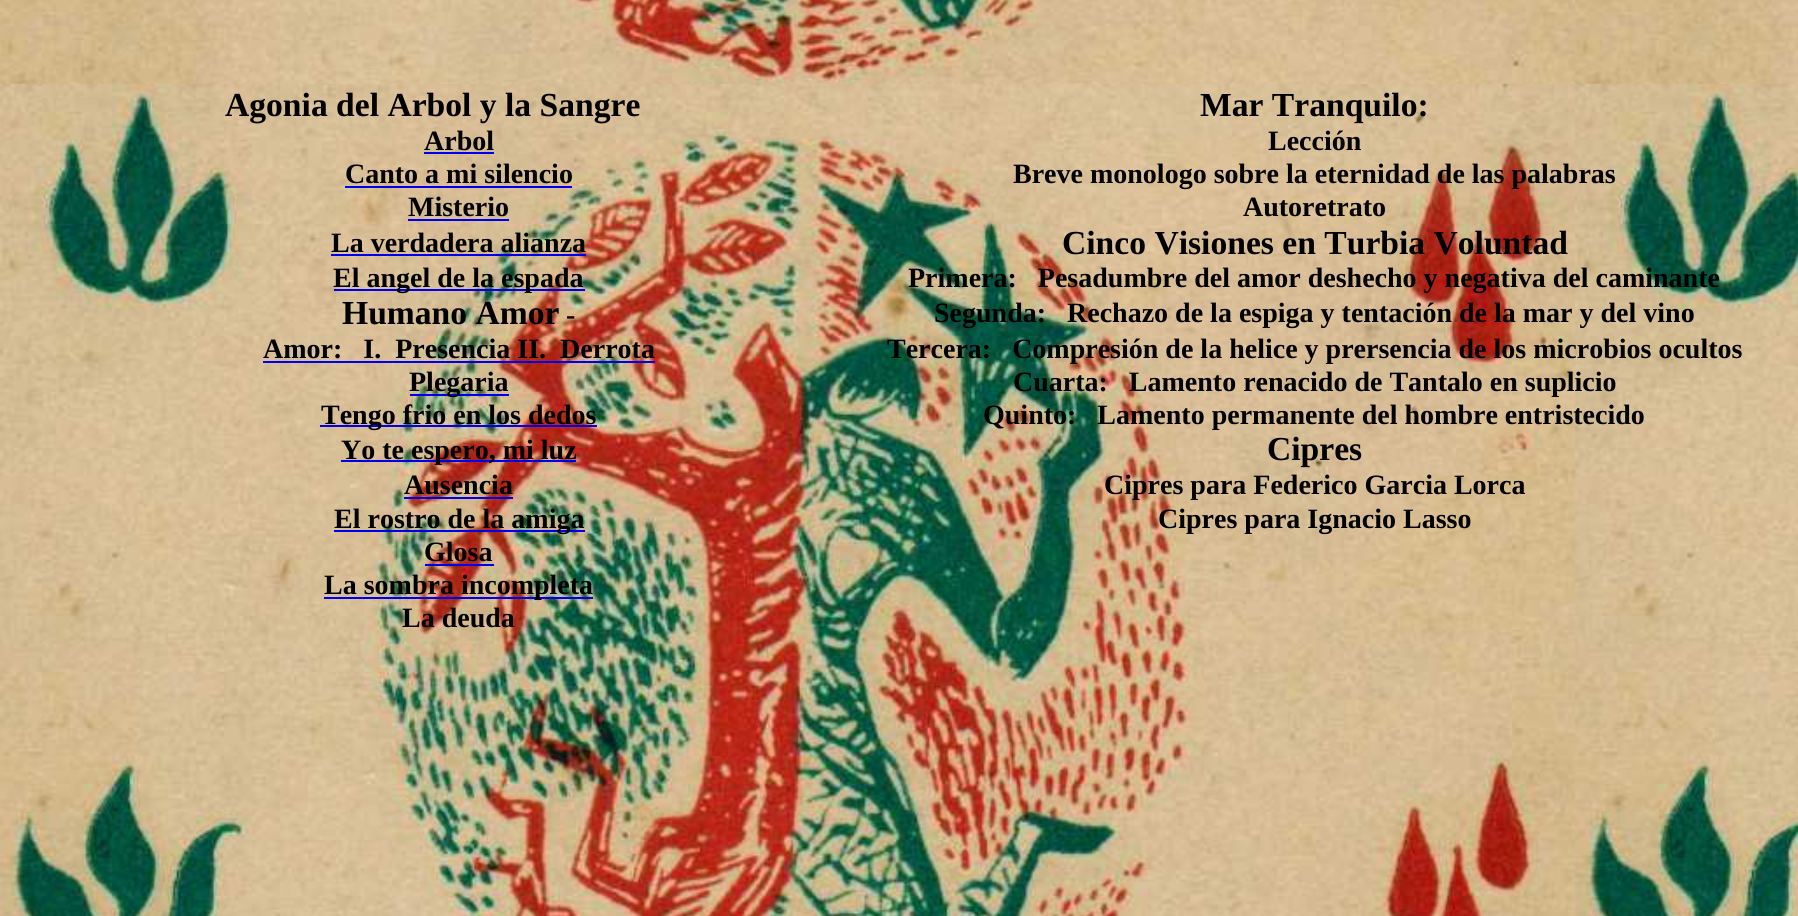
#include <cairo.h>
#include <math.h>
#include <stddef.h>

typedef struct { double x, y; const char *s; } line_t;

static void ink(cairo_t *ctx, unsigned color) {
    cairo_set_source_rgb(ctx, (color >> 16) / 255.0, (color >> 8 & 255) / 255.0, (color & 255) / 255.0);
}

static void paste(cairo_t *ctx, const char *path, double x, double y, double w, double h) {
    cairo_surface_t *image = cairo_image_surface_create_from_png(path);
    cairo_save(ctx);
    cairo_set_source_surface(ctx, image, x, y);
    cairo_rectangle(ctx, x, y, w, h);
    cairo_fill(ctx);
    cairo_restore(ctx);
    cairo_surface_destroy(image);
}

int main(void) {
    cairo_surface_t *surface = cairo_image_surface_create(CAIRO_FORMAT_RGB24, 1798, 916);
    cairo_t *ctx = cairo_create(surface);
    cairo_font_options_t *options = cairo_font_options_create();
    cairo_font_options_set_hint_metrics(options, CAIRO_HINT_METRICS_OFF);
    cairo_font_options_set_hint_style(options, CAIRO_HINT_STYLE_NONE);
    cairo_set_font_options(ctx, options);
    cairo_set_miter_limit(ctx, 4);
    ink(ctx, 0xFFFFFF);
    cairo_paint(ctx);
    paste(ctx, "media/1.png", 0, 0, 1798, 916);
    cairo_select_font_face(ctx, "Liberation Serif", CAIRO_FONT_SLANT_NORMAL, CAIRO_FONT_WEIGHT_BOLD);
    cairo_set_font_size(ctx, 33.6);
    ink(ctx, 0x000000);
    cairo_move_to(ctx, 225, 116);
    cairo_show_text(ctx, "Agonia del Arbol y la Sangre");
    cairo_move_to(ctx, 1200, 116);
    cairo_show_text(ctx, "Mar Tranquilo:");
    cairo_set_font_size(ctx, 28);
    cairo_move_to(ctx, 424, 150);
    cairo_show_text(ctx, "Arbol");
    ink(ctx, 0x0000EE);
    cairo_rectangle(ctx, 424, 152, 70, 2);
    cairo_fill(ctx);
    ink(ctx, 0x000000);
    cairo_move_to(ctx, 1268, 150);
    cairo_show_text(ctx, "Lección");
    cairo_move_to(ctx, 345, 183);
    cairo_show_text(ctx, "Canto a mi silencio");
    ink(ctx, 0x0000EE);
    cairo_rectangle(ctx, 345, 186, 227, 2);
    cairo_fill(ctx);
    ink(ctx, 0x000000);
    cairo_move_to(ctx, 1013, 183);
    cairo_show_text(ctx, "Breve monologo sobre la eternidad de las palabras");
    cairo_move_to(ctx, 408, 216);
    cairo_show_text(ctx, "Misterio");
    ink(ctx, 0x0000EE);
    cairo_rectangle(ctx, 408, 219, 101, 2);
    cairo_fill(ctx);
    ink(ctx, 0x000000);
    cairo_move_to(ctx, 1243, 216);
    cairo_show_text(ctx, "Autoretrato");
    cairo_move_to(ctx, 331, 252);
    cairo_show_text(ctx, "La verdadera alianza");
    ink(ctx, 0x0000EE);
    cairo_rectangle(ctx, 331, 254, 255, 2);
    cairo_fill(ctx);
    cairo_set_font_size(ctx, 33.6);
    ink(ctx, 0x000000);
    cairo_move_to(ctx, 1062, 254);
    cairo_show_text(ctx, "Cinco Visiones en Turbia Voluntad");
    ink(ctx, 0x0000EE);
    cairo_rectangle(ctx, 334, 289, 251, 2);
    cairo_fill(ctx);
    cairo_set_font_size(ctx, 28);
    ink(ctx, 0x000000);
    cairo_move_to(ctx, 333, 287);
    cairo_show_text(ctx, "El angel de la espada");
    cairo_move_to(ctx, 908, 287);
    cairo_show_text(ctx, "Primera:   Pesadumbre del amor deshecho y negativa del caminante");
    cairo_set_font_size(ctx, 33.6);
    cairo_move_to(ctx, 342, 324);
    cairo_show_text(ctx, "Humano Amor");
    cairo_set_font_size(ctx, 28);
    {
        static const line_t items[] = {
            {566, 324, "-"},
            {934, 322, "Segunda:   Rechazo de la espiga y tentación de la mar y del vino"},
            {263, 358, "Amor:   I.  Presencia II.  Derrota"},
        };
        for (size_t i = 0; i < sizeof items / sizeof *items; i++) {
            cairo_move_to(ctx, items[i].x, items[i].y);
            cairo_show_text(ctx, items[i].s);
        }
    }
    ink(ctx, 0x0000EE);
    cairo_rectangle(ctx, 263, 361, 392, 2);
    cairo_fill(ctx);
    ink(ctx, 0x000000);
    cairo_move_to(ctx, 887, 358);
    cairo_show_text(ctx, "Tercera:   Compresión de la helice y prersencia de los microbios ocultos");
    ink(ctx, 0x0000EE);
    cairo_rectangle(ctx, 410, 394, 99, 2);
    cairo_fill(ctx);
    ink(ctx, 0x000000);
    cairo_move_to(ctx, 409, 391);
    cairo_show_text(ctx, "Plegaria");
    cairo_move_to(ctx, 1013, 391);
    cairo_show_text(ctx, "Cuarta:   Lamento renacido de Tantalo en suplicio");
    ink(ctx, 0x0000EE);
    cairo_rectangle(ctx, 320, 425, 277, 2);
    cairo_fill(ctx);
    ink(ctx, 0x000000);
    cairo_move_to(ctx, 321, 424);
    cairo_show_text(ctx, "Tengo frio en los dedos");
    cairo_move_to(ctx, 983, 424);
    cairo_show_text(ctx, "Quinto:   Lamento permanente del hombre entristecido");
    ink(ctx, 0x0000EE);
    cairo_rectangle(ctx, 341, 460, 235, 2);
    cairo_fill(ctx);
    ink(ctx, 0x000000);
    cairo_move_to(ctx, 341, 459);
    cairo_show_text(ctx, "Yo te espero, mi luz");
    cairo_set_font_size(ctx, 33.6);
    cairo_move_to(ctx, 1267, 460);
    cairo_show_text(ctx, "Cipres");
    cairo_set_font_size(ctx, 28);
    cairo_move_to(ctx, 404, 494);
    cairo_show_text(ctx, "Ausencia");
    ink(ctx, 0x0000EE);
    cairo_rectangle(ctx, 404, 497, 109, 2);
    cairo_fill(ctx);
    ink(ctx, 0x000000);
    cairo_move_to(ctx, 1104, 494);
    cairo_show_text(ctx, "Cipres para Federico Garcia Lorca");
    ink(ctx, 0x0000EE);
    cairo_rectangle(ctx, 334, 530, 251, 2);
    cairo_fill(ctx);
    ink(ctx, 0x000000);
    {
        static const line_t items[] = {
            {334, 528, "El rostro de la amiga"},
            {1158, 528, "Cipres para Ignacio Lasso"},
            {424, 561, "Glosa"},
        };
        for (size_t i = 0; i < sizeof items / sizeof *items; i++) {
            cairo_move_to(ctx, items[i].x, items[i].y);
            cairo_show_text(ctx, items[i].s);
        }
    }
    ink(ctx, 0x0000EE);
    cairo_rectangle(ctx, 425, 564, 69, 2);
    cairo_fill(ctx);
    cairo_rectangle(ctx, 324, 597, 269, 2);
    cairo_fill(ctx);
    ink(ctx, 0x000000);
    cairo_move_to(ctx, 324, 594);
    cairo_show_text(ctx, "La sombra incompleta");
    cairo_move_to(ctx, 402, 627);
    cairo_show_text(ctx, "La deuda");
    cairo_surface_write_to_png(surface, "image.png");
    cairo_font_options_destroy(options);
    cairo_destroy(ctx);
    cairo_surface_destroy(surface);
    return 0;
}
